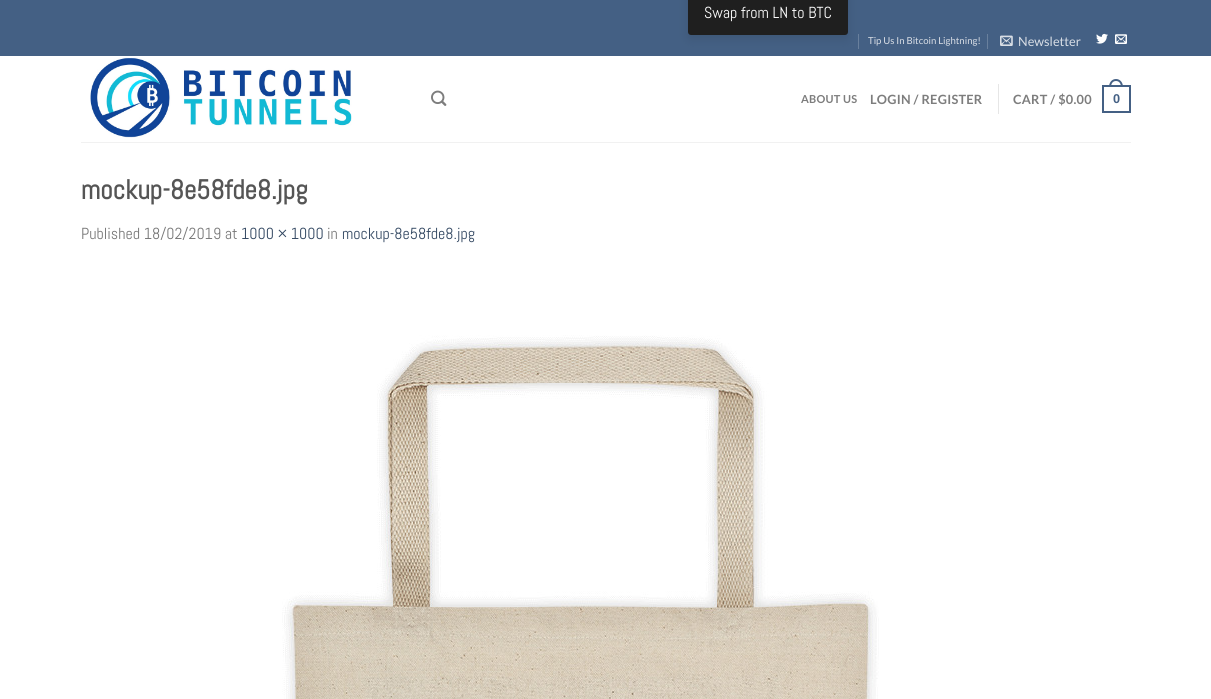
#include <cairo.h>
#include <math.h>
#include <stddef.h>


static void ink(cairo_t *ctx, unsigned color) {
    cairo_set_source_rgb(ctx, (color >> 16) / 255.0, (color >> 8 & 255) / 255.0, (color & 255) / 255.0);
}

static void write_spaced(cairo_t *ctx, double x, double y, const char *s, double letter, double word) {
    cairo_move_to(ctx, x, y);
    while (*s) {
        char ch[5] = {0};
        int n = 0;
        do ch[n++] = *s++; while ((*s & 0xC0) == 0x80);
        cairo_show_text(ctx, ch);
        cairo_rel_move_to(ctx, letter + word * (*ch == ' '), 0);
    }
}

static void round_path(cairo_t *ctx, double x, double y, double w, double h, double r) {
    cairo_new_sub_path(ctx);
    cairo_arc(ctx, x + w - r, y + h - r, r, 0, M_PI / 2);
    cairo_arc(ctx, x + r, y + h - r, r, M_PI / 2, M_PI);
    cairo_arc(ctx, x + r, y + r, r, M_PI, 1.5 * M_PI);
    cairo_arc(ctx, x + w - r, y + r, r, 1.5 * M_PI, 2 * M_PI);
    cairo_close_path(ctx);
}

static void blur_box(cairo_t *ctx, double x, double y, double w, double h, double r, double blur, double alpha) {
    cairo_push_group_with_content(ctx, CAIRO_CONTENT_ALPHA);
    cairo_set_operator(ctx, CAIRO_OPERATOR_SOURCE);
    for (int i = 15; i >= -15 && fmin(w, h) + blur * i / 3 > 0; i -= 2) {
        double e = blur * i / 6;
        cairo_set_source_rgba(ctx, 0, 0, 0, alpha * erfc((i - 1) / 8.5) / 2);
        round_path(ctx, x - e, y - e, w + 2 * e, h + 2 * e, fmax(0, fmin(r + e + blur * .6, fmin(w, h) / 2 + e)));
        cairo_fill(ctx);
    }
    cairo_pattern_t *soft = cairo_pop_group(ctx);
    cairo_mask(ctx, soft);
    cairo_pattern_destroy(soft);
}

static void paste(cairo_t *ctx, const char *path, double x, double y, double w, double h) {
    cairo_surface_t *image = cairo_image_surface_create_from_png(path);
    cairo_save(ctx);
    cairo_set_source_surface(ctx, image, x, y);
    cairo_rectangle(ctx, x, y, w, h);
    cairo_fill(ctx);
    cairo_restore(ctx);
    cairo_surface_destroy(image);
}

int main(void) {
    cairo_surface_t *surface = cairo_image_surface_create(CAIRO_FORMAT_RGB24, 1211, 699);
    cairo_t *ctx = cairo_create(surface);
    cairo_font_options_t *options = cairo_font_options_create();
    cairo_font_options_set_hint_metrics(options, CAIRO_HINT_METRICS_OFF);
    cairo_font_options_set_hint_style(options, CAIRO_HINT_STYLE_NONE);
    cairo_set_font_options(ctx, options);
    cairo_set_miter_limit(ctx, 4);
    ink(ctx, 0xFFFFFF);
    cairo_paint(ctx);
    ink(ctx, 0x446084);
    cairo_rectangle(ctx, 0, 0, 1211, 56);
    cairo_fill(ctx);
    ink(ctx, 0x69809D);
    cairo_rectangle(ctx, 858, 34, 1, 15);
    cairo_fill(ctx);
    ink(ctx, 0x000000);
    blur_box(ctx, 688, -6, 160, 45, 3, 5, 0.1);
    ink(ctx, 0x1F1F1F);
    round_path(ctx, 688, -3, 160, 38, 3);
    cairo_fill(ctx);
    cairo_select_font_face(ctx, "Abel", CAIRO_FONT_SLANT_NORMAL, CAIRO_FONT_WEIGHT_NORMAL);
    cairo_set_font_size(ctx, 16);
    ink(ctx, 0xFFFFFF);
    cairo_move_to(ctx, 704, 18);
    cairo_show_text(ctx, "Swap from LN to BTC");
    cairo_select_font_face(ctx, "Lato", CAIRO_FONT_SLANT_NORMAL, CAIRO_FONT_WEIGHT_NORMAL);
    cairo_set_font_size(ctx, 9.6);
    ink(ctx, 0xDADFE6);
    cairo_move_to(ctx, 868, 44);
    cairo_show_text(ctx, "Tip Us In Bitcoin Lightning!");
    ink(ctx, 0x69809D);
    cairo_rectangle(ctx, 987, 34, 1, 15);
    cairo_fill(ctx);
    paste(ctx, "media/1.png", 1000, 35, 13, 11);
    cairo_set_font_size(ctx, 12.75);
    ink(ctx, 0xDADFE6);
    cairo_move_to(ctx, 1018, 46);
    cairo_show_text(ctx, "Newsletter");
    paste(ctx, "media/2.png", 1096, 33, 12, 11);
    paste(ctx, "media/3.png", 1115, 34, 12, 10);
    paste(ctx, "media/4.png", 90, 57, 262, 81);
    paste(ctx, "media/5.png", 431, 90, 16, 16);
    cairo_select_font_face(ctx, "Lato", CAIRO_FONT_SLANT_NORMAL, CAIRO_FONT_WEIGHT_BOLD);
    cairo_set_font_size(ctx, 11);
    ink(ctx, 0x7D7D7D);
    write_spaced(ctx, 801, 103, "ABOUT US", 0.25, 0);
    cairo_set_font_size(ctx, 12.75);
    write_spaced(ctx, 870, 104, "LOGIN / REGISTER", 0.25, 0);
    ink(ctx, 0xE6E6E6);
    cairo_rectangle(ctx, 998, 84, 1, 30);
    cairo_fill(ctx);
    ink(ctx, 0x7D7D7D);
    write_spaced(ctx, 1013, 104, "CART / $0.00", 0.25, 0);
    cairo_rectangle(ctx, 1103, 86, 27, 26);
    ink(ctx, 0x446084);
    cairo_stroke(ctx);
    cairo_set_fill_rule(ctx, CAIRO_FILL_RULE_EVEN_ODD);
    cairo_new_path(ctx);
    cairo_move_to(ctx, 1116, 79);
    cairo_curve_to(ctx, 1120.5, 79, 1123, 83, 1123, 87);
    cairo_line_to(ctx, 1109, 87);
    cairo_curve_to(ctx, 1109, 83, 1111.5, 79, 1116, 79);
    cairo_close_path(ctx);
    cairo_move_to(ctx, 1116, 81);
    cairo_curve_to(ctx, 1119.5, 81, 1121, 84, 1121, 87);
    cairo_line_to(ctx, 1111, 87);
    cairo_curve_to(ctx, 1111, 84, 1112.5, 81, 1116, 81);
    cairo_close_path(ctx);
    cairo_fill(ctx);
    cairo_select_font_face(ctx, "Liberation Sans", CAIRO_FONT_SLANT_NORMAL, CAIRO_FONT_WEIGHT_BOLD);
    write_spaced(ctx, 1113, 103, "0", 0.25, 0);
    ink(ctx, 0xF1F1F1);
    cairo_rectangle(ctx, 81, 142, 1050, 1);
    cairo_fill(ctx);
    cairo_select_font_face(ctx, "Abel", CAIRO_FONT_SLANT_NORMAL, CAIRO_FONT_WEIGHT_BOLD);
    cairo_set_font_size(ctx, 27.25);
    ink(ctx, 0x555555);
    cairo_move_to(ctx, 81, 199);
    cairo_show_text(ctx, "mockup-8e58fde8.jpg");
    cairo_select_font_face(ctx, "Abel", CAIRO_FONT_SLANT_NORMAL, CAIRO_FONT_WEIGHT_NORMAL);
    cairo_set_font_size(ctx, 16);
    ink(ctx, 0x777777);
    cairo_move_to(ctx, 81, 239);
    cairo_show_text(ctx, "Published 18/02/2019 at");
    ink(ctx, 0x334862);
    cairo_move_to(ctx, 241, 239);
    cairo_show_text(ctx, "1000 × 1000");
    ink(ctx, 0x777777);
    cairo_move_to(ctx, 327, 239);
    cairo_show_text(ctx, "in");
    ink(ctx, 0x334862);
    cairo_move_to(ctx, 342, 239);
    cairo_show_text(ctx, "mockup-8e58fde8.jpg");
    paste(ctx, "media/6.png", 282, 335, 597, 364);
    cairo_surface_write_to_png(surface, "image.png");
    cairo_font_options_destroy(options);
    cairo_destroy(ctx);
    cairo_surface_destroy(surface);
    return 0;
}
